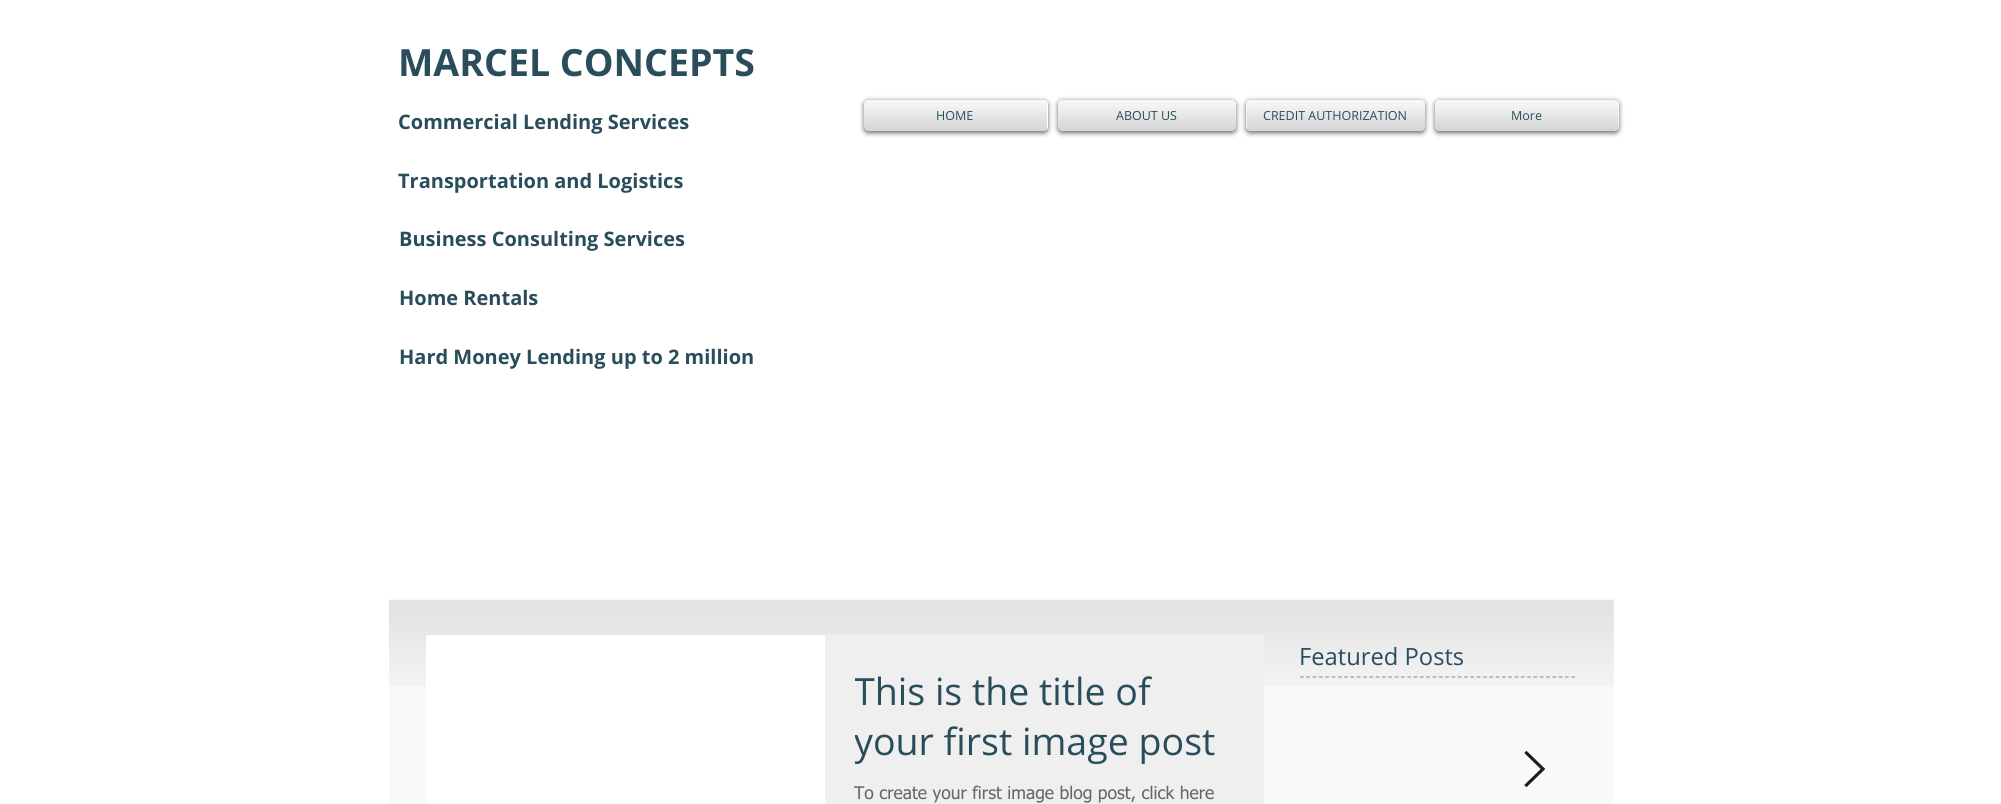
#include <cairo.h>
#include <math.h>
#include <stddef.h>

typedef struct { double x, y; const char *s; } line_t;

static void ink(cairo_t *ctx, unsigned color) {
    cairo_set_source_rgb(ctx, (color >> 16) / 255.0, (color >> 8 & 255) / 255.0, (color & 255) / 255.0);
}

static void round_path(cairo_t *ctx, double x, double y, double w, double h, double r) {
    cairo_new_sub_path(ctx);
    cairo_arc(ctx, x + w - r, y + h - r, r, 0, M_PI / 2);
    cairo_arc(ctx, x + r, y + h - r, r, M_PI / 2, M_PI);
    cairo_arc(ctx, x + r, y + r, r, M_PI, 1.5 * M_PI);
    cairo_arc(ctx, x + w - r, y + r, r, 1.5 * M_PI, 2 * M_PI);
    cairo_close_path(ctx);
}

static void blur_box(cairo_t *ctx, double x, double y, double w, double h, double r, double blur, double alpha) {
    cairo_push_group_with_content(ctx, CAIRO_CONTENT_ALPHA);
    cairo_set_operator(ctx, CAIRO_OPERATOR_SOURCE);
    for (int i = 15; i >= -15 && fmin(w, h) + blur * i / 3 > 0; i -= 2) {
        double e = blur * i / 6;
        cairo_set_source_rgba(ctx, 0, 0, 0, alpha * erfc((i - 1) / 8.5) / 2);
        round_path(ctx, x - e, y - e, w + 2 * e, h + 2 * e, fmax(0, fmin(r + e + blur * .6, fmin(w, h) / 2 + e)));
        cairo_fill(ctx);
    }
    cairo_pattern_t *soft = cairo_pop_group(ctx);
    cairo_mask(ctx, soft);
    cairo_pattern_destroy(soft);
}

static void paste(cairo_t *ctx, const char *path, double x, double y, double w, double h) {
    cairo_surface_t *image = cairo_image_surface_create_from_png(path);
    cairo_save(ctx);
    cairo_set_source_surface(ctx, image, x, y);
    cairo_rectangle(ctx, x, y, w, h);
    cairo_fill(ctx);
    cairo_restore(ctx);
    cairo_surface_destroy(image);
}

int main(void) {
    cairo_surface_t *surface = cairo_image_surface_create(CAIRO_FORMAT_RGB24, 2001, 804);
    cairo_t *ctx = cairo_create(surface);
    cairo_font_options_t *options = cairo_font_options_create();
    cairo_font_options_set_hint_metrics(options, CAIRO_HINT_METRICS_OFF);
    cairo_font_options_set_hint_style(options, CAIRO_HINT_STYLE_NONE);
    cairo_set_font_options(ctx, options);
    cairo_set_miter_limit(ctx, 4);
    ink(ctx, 0xFFFFFF);
    cairo_paint(ctx);
    cairo_select_font_face(ctx, "Open Sans", CAIRO_FONT_SLANT_NORMAL, CAIRO_FONT_WEIGHT_BOLD);
    cairo_set_font_size(ctx, 37.5);
    ink(ctx, 0x294D5B);
    cairo_move_to(ctx, 398, 76);
    cairo_show_text(ctx, "MARCEL CONCEPTS");
    cairo_set_font_size(ctx, 20);
    {
        static const line_t items[] = {
            {398, 129, "Commercial Lending Services"},
            {398, 188, "Transportation and Logistics"},
            {399, 246, "Business Consulting Services"},
            {399, 305, "Home Rentals"},
            {399, 364, "Hard Money Lending up to 2 million"},
        };
        for (size_t i = 0; i < sizeof items / sizeof *items; i++) {
            cairo_move_to(ctx, items[i].x, items[i].y);
            cairo_show_text(ctx, items[i].s);
        }
    }
    ink(ctx, 0x000000);
    blur_box(ctx, 864, 101, 184, 32, 4, 2.5, 0.6);
    ink(ctx, 0xFFFFFF);
    round_path(ctx, 864, 100, 184, 31, 4);
    cairo_fill(ctx);
    paste(ctx, "media/1.png", 864, 100, 183, 31);
    cairo_select_font_face(ctx, "Open Sans", CAIRO_FONT_SLANT_NORMAL, CAIRO_FONT_WEIGHT_NORMAL);
    cairo_set_font_size(ctx, 12.5);
    ink(ctx, 0x294D5B);
    cairo_move_to(ctx, 936, 120);
    cairo_show_text(ctx, "HOME");
    ink(ctx, 0x000000);
    blur_box(ctx, 1058, 101, 178, 32, 4, 2.5, 0.6);
    ink(ctx, 0xFFFFFF);
    round_path(ctx, 1058, 100, 178, 31, 4);
    cairo_fill(ctx);
    paste(ctx, "media/2.png", 1058, 100, 178, 31);
    ink(ctx, 0x294D5B);
    cairo_move_to(ctx, 1116, 120);
    cairo_show_text(ctx, "ABOUT US");
    ink(ctx, 0x000000);
    blur_box(ctx, 1246, 101, 179, 32, 4, 2.5, 0.6);
    ink(ctx, 0xFFFFFF);
    round_path(ctx, 1246, 100, 179, 31, 4);
    cairo_fill(ctx);
    paste(ctx, "media/3.png", 1246, 100, 179, 31);
    ink(ctx, 0x294D5B);
    cairo_move_to(ctx, 1263, 120);
    cairo_show_text(ctx, "CREDIT AUTHORIZATION");
    ink(ctx, 0x000000);
    blur_box(ctx, 1435, 101, 184, 32, 4, 2.5, 0.6);
    ink(ctx, 0xFFFFFF);
    round_path(ctx, 1435, 100, 184, 31, 4);
    cairo_fill(ctx);
    paste(ctx, "media/4.png", 1435, 100, 184, 31);
    ink(ctx, 0x294D5B);
    cairo_move_to(ctx, 1511, 120);
    cairo_show_text(ctx, "More");
    ink(ctx, 0xF9F9F9);
    cairo_rectangle(ctx, 389, 598, 1225, 206);
    cairo_fill(ctx);
    paste(ctx, "media/5.png", 389, 600, 1225, 86);
    cairo_set_font_size(ctx, 23.75);
    ink(ctx, 0x294D5B);
    cairo_move_to(ctx, 1299, 665);
    cairo_show_text(ctx, "Featured Posts");
    ink(ctx, 0xFFFFFF);
    cairo_rectangle(ctx, 426, 635, 399, 169);
    cairo_fill(ctx);
    ink(ctx, 0xEFEFEF);
    cairo_rectangle(ctx, 825, 635, 439, 169);
    cairo_fill(ctx);
    cairo_save(ctx);
    cairo_rectangle(ctx, 855, 666, 379, 100);
    cairo_clip(ctx);
    cairo_set_font_size(ctx, 37.5);
    ink(ctx, 0x294D5B);
    cairo_move_to(ctx, 854, 705);
    cairo_show_text(ctx, "This is the title of");
    cairo_move_to(ctx, 854, 755);
    cairo_show_text(ctx, "your first image post");
    cairo_restore(ctx);
    cairo_select_font_face(ctx, "tahoma", CAIRO_FONT_SLANT_NORMAL, CAIRO_FONT_WEIGHT_NORMAL);
    cairo_set_font_size(ctx, 17.5);
    ink(ctx, 0x666666);
    cairo_move_to(ctx, 854, 799);
    cairo_show_text(ctx, "To create your first image blog post, click here");
    cairo_new_path(ctx);
    cairo_move_to(ctx, 1300, 677);
    cairo_line_to(ctx, 1575, 677);
    ink(ctx, 0x999999);
    cairo_set_line_width(ctx, 1.2);
    cairo_set_dash(ctx, (double[]){3.75, 2.56}, 2, 0);
    cairo_stroke(ctx);
    ink(ctx, 0x191919);
    cairo_new_path(ctx);
    cairo_move_to(ctx, 1525, 753);
    cairo_line_to(ctx, 1526.5, 751.5);
    cairo_line_to(ctx, 1544.5, 769);
    cairo_line_to(ctx, 1526.5, 786.5);
    cairo_line_to(ctx, 1525, 785);
    cairo_line_to(ctx, 1541.5, 769);
    cairo_close_path(ctx);
    cairo_fill_preserve(ctx);
    cairo_set_line_width(ctx, 1);
    cairo_set_dash(ctx, NULL, 0, 0);
    cairo_stroke(ctx);
    cairo_surface_write_to_png(surface, "image.png");
    cairo_font_options_destroy(options);
    cairo_destroy(ctx);
    cairo_surface_destroy(surface);
    return 0;
}
